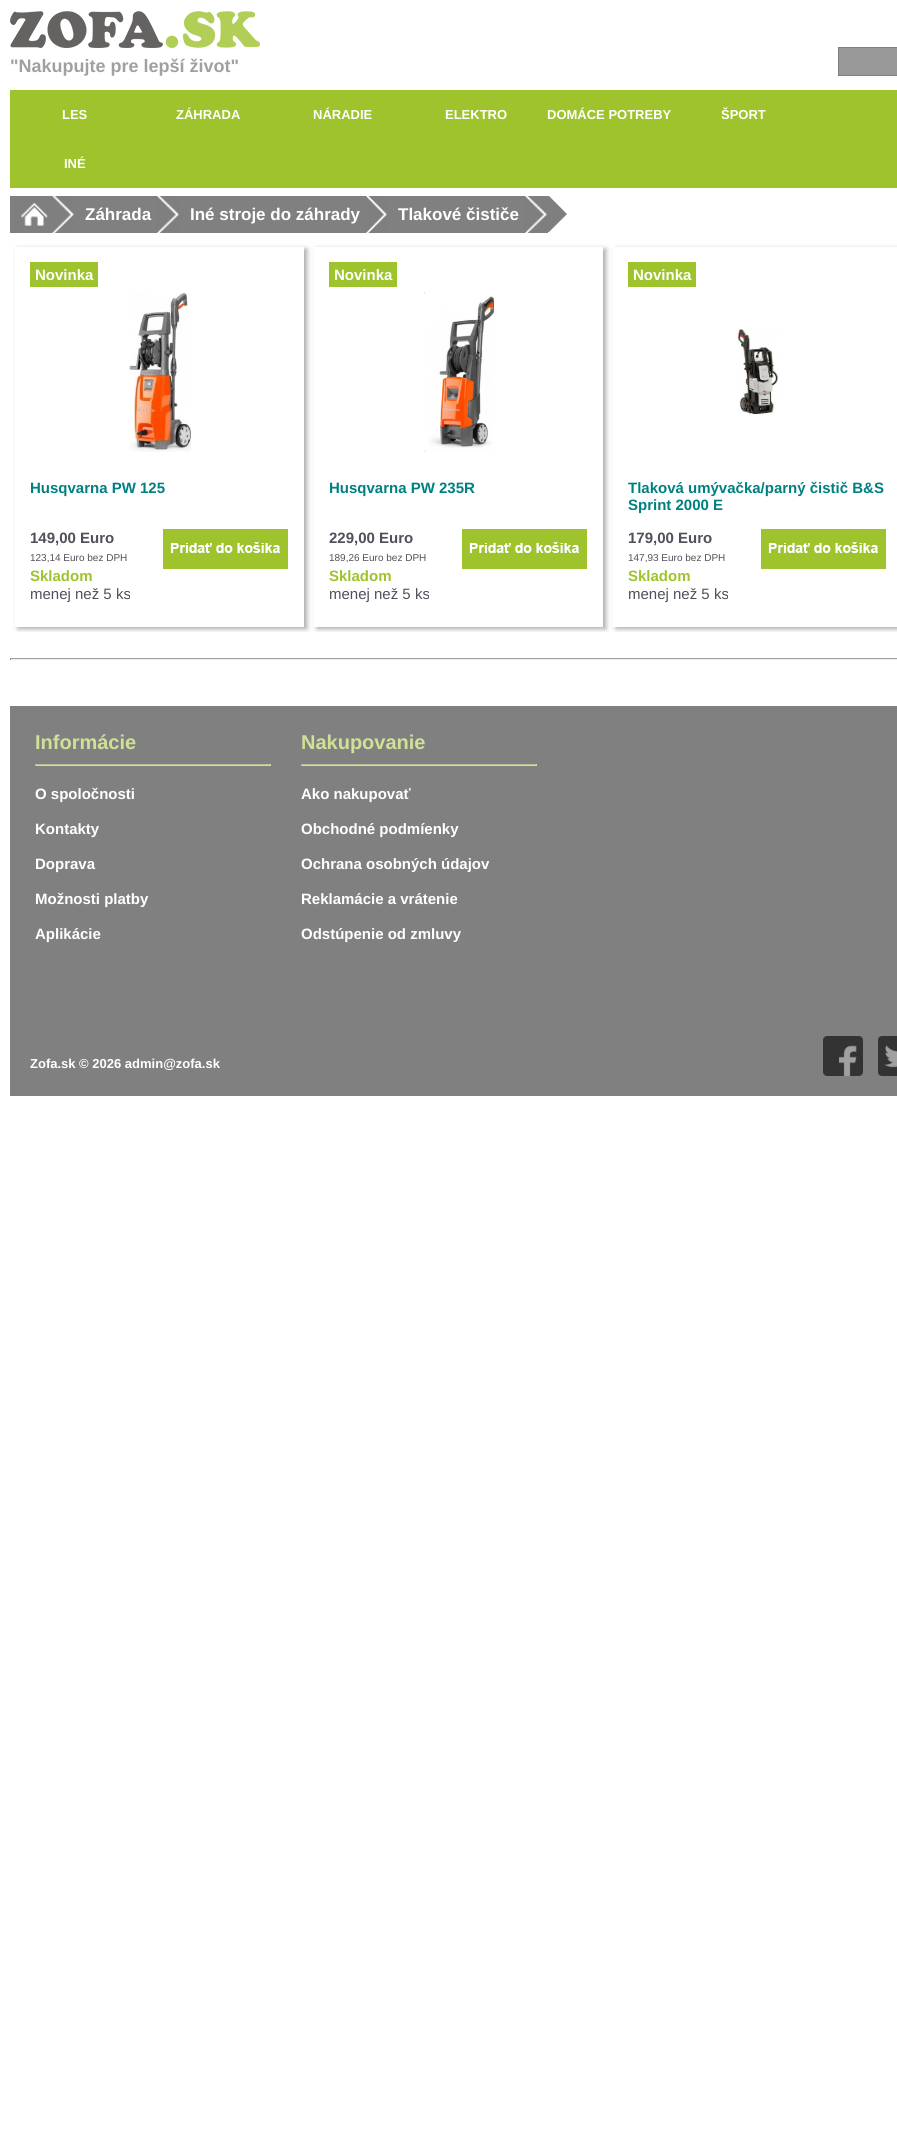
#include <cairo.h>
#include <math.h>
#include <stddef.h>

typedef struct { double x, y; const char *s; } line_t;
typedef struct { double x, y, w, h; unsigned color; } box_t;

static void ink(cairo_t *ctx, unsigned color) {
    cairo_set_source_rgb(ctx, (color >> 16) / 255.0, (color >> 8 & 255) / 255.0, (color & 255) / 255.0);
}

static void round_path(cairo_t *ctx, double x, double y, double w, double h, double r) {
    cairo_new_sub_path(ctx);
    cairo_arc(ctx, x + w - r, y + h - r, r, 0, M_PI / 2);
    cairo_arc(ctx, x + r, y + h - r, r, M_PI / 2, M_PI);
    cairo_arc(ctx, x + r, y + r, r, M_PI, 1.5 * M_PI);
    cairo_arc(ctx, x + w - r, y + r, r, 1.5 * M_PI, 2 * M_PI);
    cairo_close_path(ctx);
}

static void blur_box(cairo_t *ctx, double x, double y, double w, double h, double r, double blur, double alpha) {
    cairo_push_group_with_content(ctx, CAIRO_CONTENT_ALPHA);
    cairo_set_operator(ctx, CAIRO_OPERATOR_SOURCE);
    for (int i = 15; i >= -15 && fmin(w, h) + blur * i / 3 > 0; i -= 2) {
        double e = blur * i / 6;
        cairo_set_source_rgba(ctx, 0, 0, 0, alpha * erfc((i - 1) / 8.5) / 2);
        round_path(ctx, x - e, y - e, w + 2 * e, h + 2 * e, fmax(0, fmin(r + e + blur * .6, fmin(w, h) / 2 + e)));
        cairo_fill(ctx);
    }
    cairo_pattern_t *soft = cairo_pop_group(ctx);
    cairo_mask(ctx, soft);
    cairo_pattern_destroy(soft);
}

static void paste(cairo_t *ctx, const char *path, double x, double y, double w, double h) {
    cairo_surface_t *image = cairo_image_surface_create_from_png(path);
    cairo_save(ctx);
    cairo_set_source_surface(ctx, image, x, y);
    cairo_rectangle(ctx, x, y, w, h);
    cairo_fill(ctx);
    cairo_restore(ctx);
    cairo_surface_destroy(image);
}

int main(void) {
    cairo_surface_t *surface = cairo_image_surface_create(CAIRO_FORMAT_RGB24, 897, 2131);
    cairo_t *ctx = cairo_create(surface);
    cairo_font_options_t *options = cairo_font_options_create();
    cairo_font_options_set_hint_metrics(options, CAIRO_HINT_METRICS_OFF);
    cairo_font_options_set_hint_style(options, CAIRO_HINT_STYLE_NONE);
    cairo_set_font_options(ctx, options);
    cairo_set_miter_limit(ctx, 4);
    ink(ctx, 0xFFFFFF);
    cairo_paint(ctx);
    paste(ctx, "media/1.png", 10, 11, 250, 37);
    cairo_select_font_face(ctx, "Liberation Sans", CAIRO_FONT_SLANT_NORMAL, CAIRO_FONT_WEIGHT_BOLD);
    cairo_set_font_size(ctx, 18);
    ink(ctx, 0xA0A0A0);
    cairo_move_to(ctx, 10, 72);
    cairo_show_text(ctx, "\"Nakupujte pre lepší život\"");
    ink(ctx, 0x999999);
    cairo_rectangle(ctx, 838.5, 47.5, 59, 28);
    cairo_fill_preserve(ctx);
    ink(ctx, 0x808080);
    cairo_set_line_width(ctx, 1);
    cairo_stroke(ctx);
    ink(ctx, 0x9EC32C);
    cairo_rectangle(ctx, 10, 90, 887, 98);
    cairo_fill(ctx);
    cairo_set_font_size(ctx, 13);
    ink(ctx, 0xFFFFFF);
    {
        static const line_t items[] = {
            {62, 119, "LES"},
            {176, 119, "ZÁHRADA"},
            {313, 119, "NÁRADIE"},
            {445, 119, "ELEKTRO"},
            {547, 119, "DOMÁCE POTREBY"},
            {721, 119, "ŠPORT"},
            {64, 168, "INÉ"},
        };
        for (size_t i = 0; i < sizeof items / sizeof *items; i++) {
            cairo_move_to(ctx, items[i].x, items[i].y);
            cairo_show_text(ctx, items[i].s);
        }
    }
    paste(ctx, "media/2.png", 10, 196, 65, 37);
    ink(ctx, 0x808080);
    cairo_rectangle(ctx, 75, 196, 81, 37);
    cairo_fill(ctx);
    cairo_set_font_size(ctx, 17);
    ink(ctx, 0xFFFFFF);
    cairo_move_to(ctx, 85, 220);
    cairo_show_text(ctx, "Záhrada");
    paste(ctx, "media/3.png", 156, 196, 24, 37);
    ink(ctx, 0x808080);
    cairo_rectangle(ctx, 180, 196, 185, 37);
    cairo_fill(ctx);
    ink(ctx, 0xFFFFFF);
    cairo_move_to(ctx, 190, 220);
    cairo_show_text(ctx, "Iné stroje do záhrady");
    paste(ctx, "media/4.png", 365, 196, 23, 37);
    ink(ctx, 0x808080);
    cairo_rectangle(ctx, 388, 196, 136, 37);
    cairo_fill(ctx);
    ink(ctx, 0xFFFFFF);
    cairo_move_to(ctx, 398, 220);
    cairo_show_text(ctx, "Tlakové čističe");
    paste(ctx, "media/5.png", 524, 196, 24, 37);
    paste(ctx, "media/6.png", 548, 196, 19, 36);
    cairo_save(ctx);
    cairo_rectangle(ctx, 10, 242, 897, 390);
    cairo_clip(ctx);
    cairo_set_fill_rule(ctx, CAIRO_FILL_RULE_EVEN_ODD);
    cairo_new_path(ctx);
    cairo_move_to(ctx, 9, 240);
    cairo_line_to(ctx, 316, 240);
    cairo_line_to(ctx, 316, 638);
    cairo_line_to(ctx, 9, 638);
    cairo_close_path(ctx);
    cairo_move_to(ctx, 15, 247);
    cairo_line_to(ctx, 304, 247);
    cairo_line_to(ctx, 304, 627);
    cairo_line_to(ctx, 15, 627);
    cairo_close_path(ctx);
    cairo_clip(ctx);
    ink(ctx, 0xAAAAAA);
    blur_box(ctx, 18, 249, 289, 380, 0, 2.5, 1);
    cairo_restore(ctx);
    ink(ctx, 0x9EC32C);
    cairo_rectangle(ctx, 30, 262, 68, 25);
    cairo_fill(ctx);
    cairo_set_font_size(ctx, 15);
    ink(ctx, 0xFFFFFF);
    cairo_move_to(ctx, 35, 280);
    cairo_show_text(ctx, "Novinka");
    paste(ctx, "media/7.png", 129, 292, 62, 160);
    ink(ctx, 0x008080);
    cairo_move_to(ctx, 30, 493);
    cairo_show_text(ctx, "Husqvarna PW 125");
    ink(ctx, 0x50505A);
    cairo_move_to(ctx, 30, 543);
    cairo_show_text(ctx, "149,00 Euro");
    cairo_select_font_face(ctx, "Liberation Sans", CAIRO_FONT_SLANT_NORMAL, CAIRO_FONT_WEIGHT_NORMAL);
    cairo_set_font_size(ctx, 10);
    cairo_move_to(ctx, 30, 561);
    cairo_show_text(ctx, "123,14 Euro bez DPH");
    cairo_select_font_face(ctx, "Liberation Sans", CAIRO_FONT_SLANT_NORMAL, CAIRO_FONT_WEIGHT_BOLD);
    cairo_set_font_size(ctx, 15);
    ink(ctx, 0x9EC32C);
    cairo_move_to(ctx, 30, 581);
    cairo_show_text(ctx, "Skladom");
    cairo_select_font_face(ctx, "Liberation Sans", CAIRO_FONT_SLANT_NORMAL, CAIRO_FONT_WEIGHT_NORMAL);
    ink(ctx, 0x50505A);
    cairo_move_to(ctx, 30, 599);
    cairo_show_text(ctx, "menej než 5 ks");
    paste(ctx, "media/8.png", 163, 529, 125, 40);
    cairo_save(ctx);
    cairo_rectangle(ctx, 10, 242, 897, 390);
    cairo_clip(ctx);
    cairo_set_fill_rule(ctx, CAIRO_FILL_RULE_EVEN_ODD);
    cairo_new_path(ctx);
    cairo_move_to(ctx, 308, 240);
    cairo_line_to(ctx, 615, 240);
    cairo_line_to(ctx, 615, 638);
    cairo_line_to(ctx, 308, 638);
    cairo_close_path(ctx);
    cairo_move_to(ctx, 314, 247);
    cairo_line_to(ctx, 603, 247);
    cairo_line_to(ctx, 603, 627);
    cairo_line_to(ctx, 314, 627);
    cairo_close_path(ctx);
    cairo_clip(ctx);
    ink(ctx, 0xAAAAAA);
    blur_box(ctx, 317, 249, 289, 380, 0, 2.5, 1);
    cairo_restore(ctx);
    ink(ctx, 0x9EC32C);
    cairo_rectangle(ctx, 329, 262, 68, 25);
    cairo_fill(ctx);
    cairo_select_font_face(ctx, "Liberation Sans", CAIRO_FONT_SLANT_NORMAL, CAIRO_FONT_WEIGHT_BOLD);
    ink(ctx, 0xFFFFFF);
    cairo_move_to(ctx, 334, 280);
    cairo_show_text(ctx, "Novinka");
    paste(ctx, "media/9.png", 424, 292, 70, 160);
    ink(ctx, 0x008080);
    cairo_move_to(ctx, 329, 493);
    cairo_show_text(ctx, "Husqvarna PW 235R");
    ink(ctx, 0x50505A);
    cairo_move_to(ctx, 329, 543);
    cairo_show_text(ctx, "229,00 Euro");
    cairo_select_font_face(ctx, "Liberation Sans", CAIRO_FONT_SLANT_NORMAL, CAIRO_FONT_WEIGHT_NORMAL);
    cairo_set_font_size(ctx, 10);
    cairo_move_to(ctx, 329, 561);
    cairo_show_text(ctx, "189,26 Euro bez DPH");
    cairo_select_font_face(ctx, "Liberation Sans", CAIRO_FONT_SLANT_NORMAL, CAIRO_FONT_WEIGHT_BOLD);
    cairo_set_font_size(ctx, 15);
    ink(ctx, 0x9EC32C);
    cairo_move_to(ctx, 329, 581);
    cairo_show_text(ctx, "Skladom");
    cairo_select_font_face(ctx, "Liberation Sans", CAIRO_FONT_SLANT_NORMAL, CAIRO_FONT_WEIGHT_NORMAL);
    ink(ctx, 0x50505A);
    cairo_move_to(ctx, 329, 599);
    cairo_show_text(ctx, "menej než 5 ks");
    paste(ctx, "media/8.png", 462, 529, 125, 40);
    cairo_save(ctx);
    cairo_rectangle(ctx, 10, 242, 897, 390);
    cairo_clip(ctx);
    cairo_set_fill_rule(ctx, CAIRO_FILL_RULE_EVEN_ODD);
    cairo_new_path(ctx);
    cairo_move_to(ctx, 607, 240);
    cairo_line_to(ctx, 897, 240);
    cairo_line_to(ctx, 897, 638);
    cairo_line_to(ctx, 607, 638);
    cairo_close_path(ctx);
    cairo_move_to(ctx, 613, 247);
    cairo_line_to(ctx, 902, 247);
    cairo_line_to(ctx, 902, 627);
    cairo_line_to(ctx, 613, 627);
    cairo_close_path(ctx);
    cairo_clip(ctx);
    ink(ctx, 0xAAAAAA);
    blur_box(ctx, 616, 249, 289, 380, 0, 2.5, 1);
    cairo_restore(ctx);
    ink(ctx, 0x9EC32C);
    cairo_rectangle(ctx, 628, 262, 68, 25);
    cairo_fill(ctx);
    cairo_select_font_face(ctx, "Liberation Sans", CAIRO_FONT_SLANT_NORMAL, CAIRO_FONT_WEIGHT_BOLD);
    ink(ctx, 0xFFFFFF);
    cairo_move_to(ctx, 633, 280);
    cairo_show_text(ctx, "Novinka");
    paste(ctx, "media/10.png", 737, 329, 42, 86);
    ink(ctx, 0x008080);
    cairo_move_to(ctx, 628, 493);
    cairo_show_text(ctx, "Tlaková umývačka/parný čistič B&S");
    cairo_move_to(ctx, 628, 510);
    cairo_show_text(ctx, "Sprint 2000 E");
    ink(ctx, 0x50505A);
    cairo_move_to(ctx, 628, 543);
    cairo_show_text(ctx, "179,00 Euro");
    cairo_select_font_face(ctx, "Liberation Sans", CAIRO_FONT_SLANT_NORMAL, CAIRO_FONT_WEIGHT_NORMAL);
    cairo_set_font_size(ctx, 10);
    cairo_move_to(ctx, 628, 561);
    cairo_show_text(ctx, "147,93 Euro bez DPH");
    cairo_select_font_face(ctx, "Liberation Sans", CAIRO_FONT_SLANT_NORMAL, CAIRO_FONT_WEIGHT_BOLD);
    cairo_set_font_size(ctx, 15);
    ink(ctx, 0x9EC32C);
    cairo_move_to(ctx, 628, 581);
    cairo_show_text(ctx, "Skladom");
    cairo_select_font_face(ctx, "Liberation Sans", CAIRO_FONT_SLANT_NORMAL, CAIRO_FONT_WEIGHT_NORMAL);
    ink(ctx, 0x50505A);
    cairo_move_to(ctx, 628, 599);
    cairo_show_text(ctx, "menej než 5 ks");
    paste(ctx, "media/8.png", 761, 529, 125, 40);
    {
        static const box_t items[] = {
            {10, 658, 887, 1, 0x9F9F9F},
            {10, 659, 887, 1, 0xEEEEEE},
            {10, 658, 1, 2, 0x9F9F9F},
            {10, 706, 887, 390, 0x808080},
        };
        for (size_t i = 0; i < sizeof items / sizeof *items; i++) {
            ink(ctx, items[i].color);
            cairo_rectangle(ctx, items[i].x, items[i].y, items[i].w, items[i].h);
            cairo_fill(ctx);
        }
    }
    cairo_select_font_face(ctx, "Liberation Sans", CAIRO_FONT_SLANT_NORMAL, CAIRO_FONT_WEIGHT_BOLD);
    cairo_set_font_size(ctx, 20);
    ink(ctx, 0xCFE196);
    cairo_move_to(ctx, 35, 749);
    cairo_show_text(ctx, "Informácie");
    {
        static const box_t items[] = {
            {35, 765, 236, 1, 0xCFE296},
            {35, 764, 236, 1, 0xB5C18F},
            {270, 764, 1, 2, 0xCFE296},
            {35, 764, 1, 2, 0xB5C18F},
        };
        for (size_t i = 0; i < sizeof items / sizeof *items; i++) {
            ink(ctx, items[i].color);
            cairo_rectangle(ctx, items[i].x, items[i].y, items[i].w, items[i].h);
            cairo_fill(ctx);
        }
    }
    cairo_set_font_size(ctx, 15);
    ink(ctx, 0xFFFFFF);
    {
        static const line_t items[] = {
            {35, 799, "O spoločnosti"},
            {35, 834, "Kontakty"},
            {35, 869, "Doprava"},
            {35, 904, "Možnosti platby"},
            {35, 939, "Aplikácie"},
        };
        for (size_t i = 0; i < sizeof items / sizeof *items; i++) {
            cairo_move_to(ctx, items[i].x, items[i].y);
            cairo_show_text(ctx, items[i].s);
        }
    }
    cairo_set_font_size(ctx, 20);
    ink(ctx, 0xCFE196);
    cairo_move_to(ctx, 301, 749);
    cairo_show_text(ctx, "Nakupovanie");
    {
        static const box_t items[] = {
            {301, 765, 236, 1, 0xCFE296},
            {301, 764, 236, 1, 0xB5C18F},
            {536, 764, 1, 2, 0xCFE296},
            {301, 764, 1, 2, 0xB5C18F},
        };
        for (size_t i = 0; i < sizeof items / sizeof *items; i++) {
            ink(ctx, items[i].color);
            cairo_rectangle(ctx, items[i].x, items[i].y, items[i].w, items[i].h);
            cairo_fill(ctx);
        }
    }
    cairo_set_font_size(ctx, 15);
    ink(ctx, 0xFFFFFF);
    {
        static const line_t items[] = {
            {301, 799, "Ako nakupovať"},
            {301, 834, "Obchodné podmíenky"},
            {301, 869, "Ochrana osobných údajov"},
            {301, 904, "Reklamácie a vrátenie"},
            {301, 939, "Odstúpenie od zmluvy"},
        };
        for (size_t i = 0; i < sizeof items / sizeof *items; i++) {
            cairo_move_to(ctx, items[i].x, items[i].y);
            cairo_show_text(ctx, items[i].s);
        }
    }
    cairo_set_font_size(ctx, 13);
    cairo_move_to(ctx, 30, 1068);
    cairo_show_text(ctx, "Zofa.sk © 2026 admin@zofa.sk");
    paste(ctx, "media/11.png", 823, 1036, 40, 40);
    paste(ctx, "media/12.png", 878, 1036, 19, 40);
    cairo_surface_write_to_png(surface, "image.png");
    cairo_font_options_destroy(options);
    cairo_destroy(ctx);
    cairo_surface_destroy(surface);
    return 0;
}
